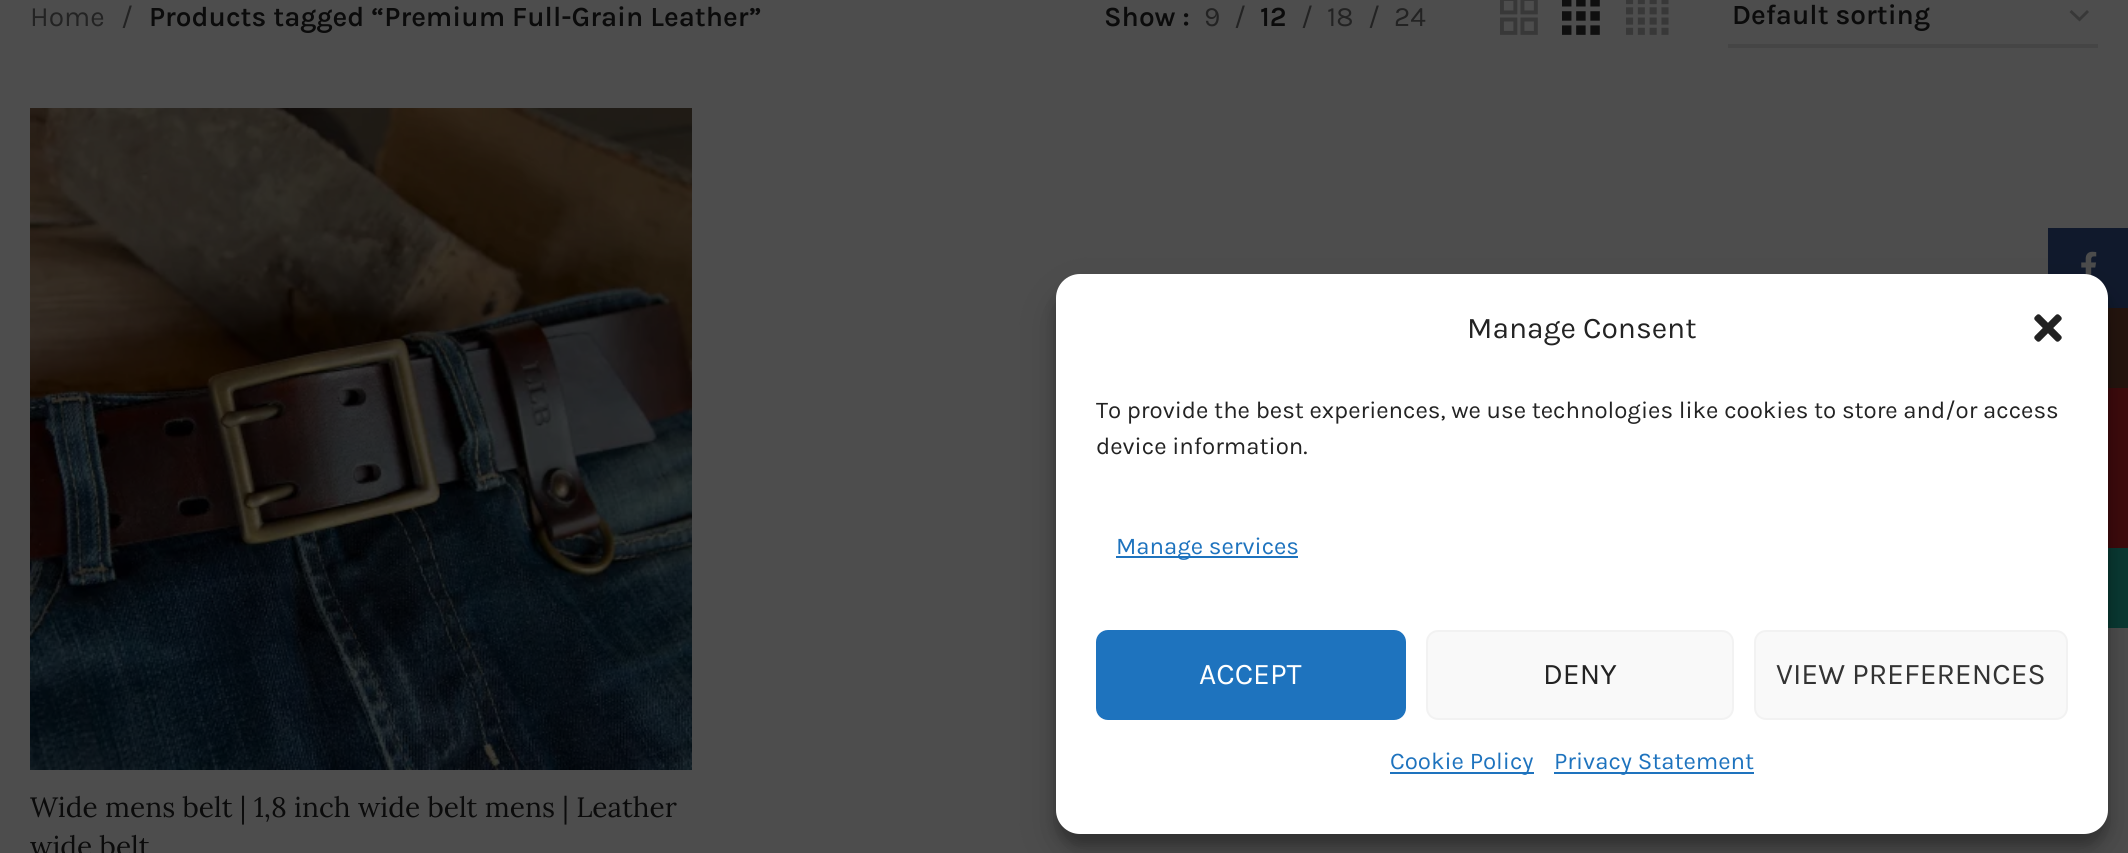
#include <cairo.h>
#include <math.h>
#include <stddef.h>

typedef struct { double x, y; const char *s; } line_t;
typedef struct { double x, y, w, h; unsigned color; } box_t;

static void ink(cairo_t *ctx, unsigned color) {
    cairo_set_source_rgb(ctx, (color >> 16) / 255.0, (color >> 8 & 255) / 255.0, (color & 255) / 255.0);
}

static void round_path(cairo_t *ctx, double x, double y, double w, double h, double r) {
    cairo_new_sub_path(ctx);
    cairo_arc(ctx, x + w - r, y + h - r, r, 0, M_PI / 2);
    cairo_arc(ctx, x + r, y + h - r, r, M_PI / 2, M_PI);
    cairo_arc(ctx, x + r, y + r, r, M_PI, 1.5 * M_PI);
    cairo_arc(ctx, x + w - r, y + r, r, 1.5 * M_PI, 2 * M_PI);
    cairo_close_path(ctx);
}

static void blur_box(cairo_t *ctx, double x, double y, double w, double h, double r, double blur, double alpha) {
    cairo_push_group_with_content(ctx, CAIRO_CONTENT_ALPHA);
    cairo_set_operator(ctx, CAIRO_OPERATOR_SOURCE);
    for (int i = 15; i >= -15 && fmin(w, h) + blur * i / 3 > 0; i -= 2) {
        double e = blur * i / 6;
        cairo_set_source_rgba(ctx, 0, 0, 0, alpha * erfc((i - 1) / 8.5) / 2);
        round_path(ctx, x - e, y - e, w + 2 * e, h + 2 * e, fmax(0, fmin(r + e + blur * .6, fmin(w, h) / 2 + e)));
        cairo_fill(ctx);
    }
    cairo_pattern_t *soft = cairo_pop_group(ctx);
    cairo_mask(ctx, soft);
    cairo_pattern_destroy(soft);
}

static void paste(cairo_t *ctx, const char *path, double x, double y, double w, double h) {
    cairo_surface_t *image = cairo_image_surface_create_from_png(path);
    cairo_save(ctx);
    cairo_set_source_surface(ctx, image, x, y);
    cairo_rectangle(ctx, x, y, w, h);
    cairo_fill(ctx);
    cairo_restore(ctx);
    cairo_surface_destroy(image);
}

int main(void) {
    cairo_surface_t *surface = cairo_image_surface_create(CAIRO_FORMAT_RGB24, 2128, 853);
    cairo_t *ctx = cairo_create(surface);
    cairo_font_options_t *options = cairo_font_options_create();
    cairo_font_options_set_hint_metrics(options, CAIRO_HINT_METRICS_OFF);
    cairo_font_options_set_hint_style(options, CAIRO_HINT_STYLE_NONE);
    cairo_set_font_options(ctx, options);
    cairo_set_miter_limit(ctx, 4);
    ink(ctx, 0x4D4D4D);
    cairo_paint(ctx);
    cairo_select_font_face(ctx, "Karla", CAIRO_FONT_SLANT_NORMAL, CAIRO_FONT_WEIGHT_NORMAL);
    cairo_set_font_size(ctx, 28);
    ink(ctx, 0x232323);
    cairo_move_to(ctx, 30, 26);
    cairo_show_text(ctx, "Home");
    cairo_move_to(ctx, 121, 26);
    cairo_show_text(ctx, "/");
    cairo_select_font_face(ctx, "Karla SemiBold", CAIRO_FONT_SLANT_NORMAL, CAIRO_FONT_WEIGHT_NORMAL);
    ink(ctx, 0x0B0B0B);
    cairo_move_to(ctx, 149, 26);
    cairo_show_text(ctx, "Products tagged “Premium Full-Grain Leather”");
    cairo_move_to(ctx, 1104, 26);
    cairo_show_text(ctx, "Show :");
    cairo_select_font_face(ctx, "Karla", CAIRO_FONT_SLANT_NORMAL, CAIRO_FONT_WEIGHT_NORMAL);
    ink(ctx, 0x232323);
    cairo_move_to(ctx, 1204, 26);
    cairo_show_text(ctx, "9");
    cairo_move_to(ctx, 1234, 26);
    cairo_show_text(ctx, "/");
    cairo_select_font_face(ctx, "Karla SemiBold", CAIRO_FONT_SLANT_NORMAL, CAIRO_FONT_WEIGHT_NORMAL);
    ink(ctx, 0x0B0B0B);
    cairo_move_to(ctx, 1260, 26);
    cairo_show_text(ctx, "12");
    cairo_select_font_face(ctx, "Karla", CAIRO_FONT_SLANT_NORMAL, CAIRO_FONT_WEIGHT_NORMAL);
    ink(ctx, 0x232323);
    {
        static const line_t items[] = {
            {1301, 26, "/"},
            {1327, 26, "18"},
            {1368, 26, "/"},
            {1394, 26, "24"},
        };
        for (size_t i = 0; i < sizeof items / sizeof *items; i++) {
            cairo_move_to(ctx, items[i].x, items[i].y);
            cairo_show_text(ctx, items[i].s);
        }
    }
    paste(ctx, "media/1.png", 1500, 0, 38, 35);
    paste(ctx, "media/2.png", 1562, 0, 38, 35);
    paste(ctx, "media/3.png", 1626, 0, 43, 35);
    cairo_new_path(ctx);
    cairo_move_to(ctx, 2070.5, 11);
    cairo_line_to(ctx, 2079.5, 19.5);
    cairo_line_to(ctx, 2088, 11);
    ink(ctx, 0x383838);
    cairo_set_line_width(ctx, 2.9);
    cairo_stroke(ctx);
    ink(ctx, 0x454545);
    cairo_rectangle(ctx, 1728, 44, 370, 4);
    cairo_fill(ctx);
    cairo_select_font_face(ctx, "Karla SemiBold", CAIRO_FONT_SLANT_NORMAL, CAIRO_FONT_WEIGHT_NORMAL);
    ink(ctx, 0x0B0B0B);
    cairo_move_to(ctx, 1732, 24);
    cairo_show_text(ctx, "Default sorting");
    paste(ctx, "media/4.png", 30, 108, 662, 662);
    cairo_select_font_face(ctx, "Lora", CAIRO_FONT_SLANT_NORMAL, CAIRO_FONT_WEIGHT_NORMAL);
    cairo_move_to(ctx, 30, 817);
    cairo_show_text(ctx, "Wide mens belt | 1,8 inch wide belt mens | Leather");
    cairo_move_to(ctx, 30, 856);
    cairo_show_text(ctx, "wide belt");
    ink(ctx, 0x10192C);
    cairo_rectangle(ctx, 2048, 228, 80, 80);
    cairo_fill(ctx);
    paste(ctx, "media/5.png", 2081, 251, 16, 25);
    {
        static const box_t items[] = {
            {2108, 308, 20, 80, 0x24140E},
            {2108, 388, 20, 160, 0x3D0A0C},
            {2108, 548, 20, 80, 0x093932},
        };
        for (size_t i = 0; i < sizeof items / sizeof *items; i++) {
            ink(ctx, items[i].color);
            cairo_rectangle(ctx, items[i].x, items[i].y, items[i].w, items[i].h);
            cairo_fill(ctx);
        }
    }
    ink(ctx, 0x000000);
    blur_box(ctx, 1056, 286, 1052, 560, 24, 6, 0.23);
    blur_box(ctx, 1056, 294, 1052, 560, 24, 20, 0.19);
    ink(ctx, 0xFFFFFF);
    round_path(ctx, 1056, 274, 1052, 560, 24);
    cairo_fill(ctx);
    cairo_select_font_face(ctx, "Karla", CAIRO_FONT_SLANT_NORMAL, CAIRO_FONT_WEIGHT_NORMAL);
    cairo_set_font_size(ctx, 30);
    ink(ctx, 0x232323);
    cairo_move_to(ctx, 1467, 338);
    cairo_show_text(ctx, "Manage Consent");
    paste(ctx, "media/6.png", 2034, 314, 28, 28);
    cairo_set_font_size(ctx, 24);
    cairo_move_to(ctx, 1096, 418);
    cairo_show_text(ctx, "To provide the best experiences, we use technologies like cookies to store and/or access");
    cairo_move_to(ctx, 1096, 454);
    cairo_show_text(ctx, "device information.");
    ink(ctx, 0x1E73BE);
    cairo_rectangle(ctx, 1116, 556, 182, 2);
    cairo_fill(ctx);
    cairo_move_to(ctx, 1116, 554);
    cairo_show_text(ctx, "Manage services");
    round_path(ctx, 1097, 631, 308, 88, 11);
    cairo_fill_preserve(ctx);
    cairo_set_line_width(ctx, 2);
    cairo_stroke(ctx);
    cairo_set_font_size(ctx, 30);
    ink(ctx, 0xFFFFFF);
    cairo_move_to(ctx, 1199, 684);
    cairo_show_text(ctx, "ACCEPT");
    ink(ctx, 0xF9F9F9);
    round_path(ctx, 1427, 631, 306, 88, 11);
    cairo_fill_preserve(ctx);
    ink(ctx, 0xF2F2F2);
    cairo_stroke(ctx);
    ink(ctx, 0x232323);
    cairo_move_to(ctx, 1543, 684);
    cairo_show_text(ctx, "DENY");
    ink(ctx, 0xF9F9F9);
    round_path(ctx, 1755, 631, 312, 88, 11);
    cairo_fill_preserve(ctx);
    ink(ctx, 0xF2F2F2);
    cairo_stroke(ctx);
    ink(ctx, 0x333333);
    cairo_move_to(ctx, 1776, 684);
    cairo_show_text(ctx, "VIEW PREFERENCES");
    ink(ctx, 0x1E73BE);
    cairo_rectangle(ctx, 1390, 772, 144, 2);
    cairo_fill(ctx);
    cairo_set_font_size(ctx, 24);
    cairo_move_to(ctx, 1390, 769);
    cairo_show_text(ctx, "Cookie Policy");
    cairo_rectangle(ctx, 1554, 772, 200, 2);
    cairo_fill(ctx);
    cairo_move_to(ctx, 1554, 769);
    cairo_show_text(ctx, "Privacy Statement");
    cairo_surface_write_to_png(surface, "image.png");
    cairo_font_options_destroy(options);
    cairo_destroy(ctx);
    cairo_surface_destroy(surface);
    return 0;
}
